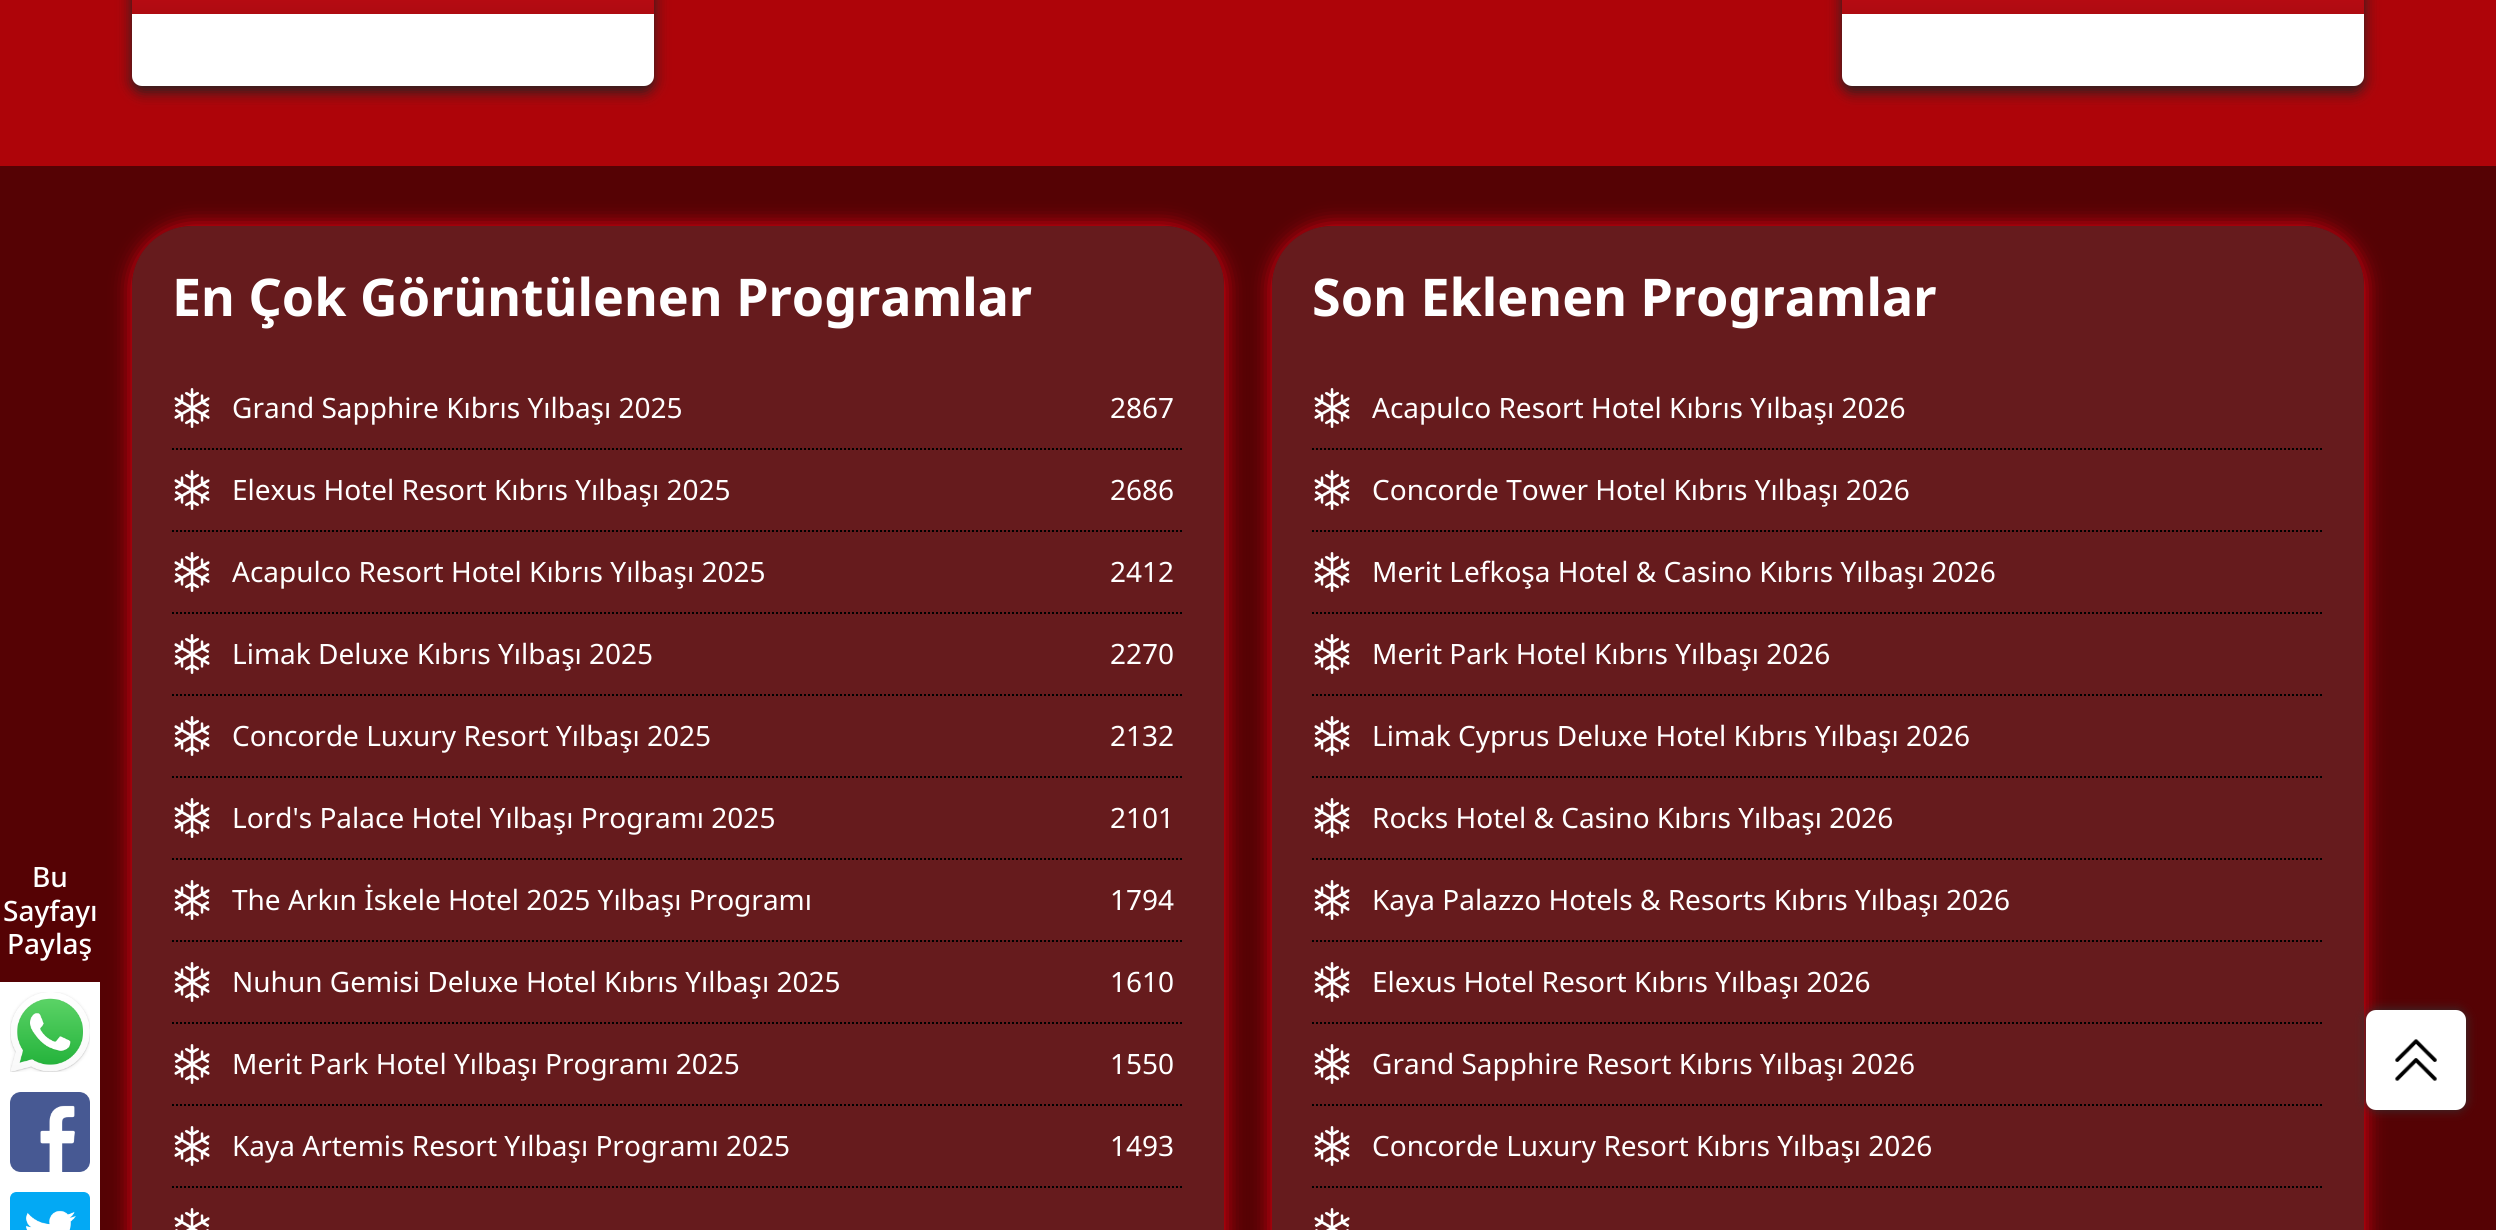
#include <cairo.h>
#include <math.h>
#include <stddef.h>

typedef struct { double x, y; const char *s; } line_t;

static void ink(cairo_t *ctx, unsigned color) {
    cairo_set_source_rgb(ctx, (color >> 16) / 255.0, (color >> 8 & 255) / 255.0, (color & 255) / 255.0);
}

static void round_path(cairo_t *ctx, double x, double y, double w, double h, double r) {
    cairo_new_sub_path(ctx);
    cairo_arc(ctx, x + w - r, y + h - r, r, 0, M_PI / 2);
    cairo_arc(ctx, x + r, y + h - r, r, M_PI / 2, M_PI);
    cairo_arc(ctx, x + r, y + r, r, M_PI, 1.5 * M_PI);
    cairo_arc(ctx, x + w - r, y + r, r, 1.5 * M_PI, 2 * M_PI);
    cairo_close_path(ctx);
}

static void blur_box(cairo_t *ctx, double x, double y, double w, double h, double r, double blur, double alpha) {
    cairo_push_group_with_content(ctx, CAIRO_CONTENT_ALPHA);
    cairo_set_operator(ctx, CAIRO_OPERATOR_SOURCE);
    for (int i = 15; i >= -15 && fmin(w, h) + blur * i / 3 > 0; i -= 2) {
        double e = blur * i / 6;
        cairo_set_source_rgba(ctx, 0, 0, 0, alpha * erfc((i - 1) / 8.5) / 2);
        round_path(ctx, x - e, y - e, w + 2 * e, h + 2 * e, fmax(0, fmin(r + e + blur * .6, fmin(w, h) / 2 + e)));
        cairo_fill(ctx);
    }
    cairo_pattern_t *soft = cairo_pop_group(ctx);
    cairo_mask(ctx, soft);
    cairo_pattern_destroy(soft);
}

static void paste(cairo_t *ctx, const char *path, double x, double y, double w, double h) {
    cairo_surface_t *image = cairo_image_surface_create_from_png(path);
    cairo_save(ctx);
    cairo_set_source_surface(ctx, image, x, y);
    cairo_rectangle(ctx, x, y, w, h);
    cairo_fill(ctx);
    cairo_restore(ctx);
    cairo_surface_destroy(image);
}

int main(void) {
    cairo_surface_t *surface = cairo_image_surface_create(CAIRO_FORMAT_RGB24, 2496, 1230);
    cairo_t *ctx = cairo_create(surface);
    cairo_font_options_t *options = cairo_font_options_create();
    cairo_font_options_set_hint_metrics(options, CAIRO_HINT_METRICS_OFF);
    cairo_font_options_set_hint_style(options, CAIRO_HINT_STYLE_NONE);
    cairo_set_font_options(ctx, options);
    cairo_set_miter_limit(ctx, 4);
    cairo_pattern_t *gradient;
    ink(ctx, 0xAE0409);
    cairo_paint(ctx);
    ink(ctx, 0x222222);
    blur_box(ctx, 132, -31, 522, 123, 10, 7, 1);
    ink(ctx, 0xFFFFFF);
    round_path(ctx, 132, -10, 522, 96, 10);
    cairo_fill(ctx);
    gradient = cairo_pattern_create_linear(393, -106, 393, 14);
    cairo_pattern_add_color_stop_rgba(gradient, 0, 0.922, 0.051, 0.098, 1);
    cairo_pattern_add_color_stop_rgba(gradient, 1, 0.682, 0.043, 0.067, 1);
    cairo_set_source(ctx, gradient);
    cairo_pattern_destroy(gradient);
    cairo_rectangle(ctx, 132, 0, 522, 14);
    cairo_fill(ctx);
    ink(ctx, 0x222222);
    blur_box(ctx, 1842, -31, 522, 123, 10, 7, 1);
    ink(ctx, 0xFFFFFF);
    round_path(ctx, 1842, -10, 522, 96, 10);
    cairo_fill(ctx);
    gradient = cairo_pattern_create_linear(2103, -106, 2103, 14);
    cairo_pattern_add_color_stop_rgba(gradient, 0, 0.922, 0.051, 0.098, 1);
    cairo_pattern_add_color_stop_rgba(gradient, 1, 0.682, 0.043, 0.067, 1);
    cairo_set_source(ctx, gradient);
    cairo_pattern_destroy(gradient);
    cairo_rectangle(ctx, 1842, 0, 522, 14);
    cairo_fill(ctx);
    ink(ctx, 0x550204);
    cairo_rectangle(ctx, 0, 166, 2496, 1064);
    cairo_fill(ctx);
    cairo_select_font_face(ctx, "Noto Sans Medium", CAIRO_FONT_SLANT_NORMAL, CAIRO_FONT_WEIGHT_NORMAL);
    cairo_set_font_size(ctx, 28);
    ink(ctx, 0xFFFFFF);
    {
        static const line_t items[] = {
            {32, 887, "Bu"},
            {3, 921, "Sayfayı"},
            {7, 954, "Paylaş"},
        };
        for (size_t i = 0; i < sizeof items / sizeof *items; i++) {
            cairo_move_to(ctx, items[i].x, items[i].y);
            cairo_show_text(ctx, items[i].s);
        }
    }
    cairo_rectangle(ctx, 0, 982, 100, 248);
    cairo_fill(ctx);
    paste(ctx, "media/1.png", 10, 992, 80, 80);
    paste(ctx, "media/2.png", 10, 1092, 80, 80);
    paste(ctx, "media/3.png", 10, 1192, 80, 38);
    cairo_save(ctx);
    cairo_set_fill_rule(ctx, CAIRO_FILL_RULE_EVEN_ODD);
    cairo_new_path(ctx);
    cairo_move_to(ctx, 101, 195);
    cairo_line_to(ctx, 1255, 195);
    cairo_line_to(ctx, 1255, 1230);
    cairo_line_to(ctx, 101, 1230);
    cairo_close_path(ctx);
    cairo_move_to(ctx, 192, 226);
    cairo_line_to(ctx, 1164, 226);
    cairo_curve_to(ctx, 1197, 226, 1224, 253, 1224, 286);
    cairo_line_to(ctx, 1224, 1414);
    cairo_curve_to(ctx, 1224, 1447, 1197, 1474, 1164, 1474);
    cairo_line_to(ctx, 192, 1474);
    cairo_curve_to(ctx, 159, 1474, 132, 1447, 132, 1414);
    cairo_line_to(ctx, 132, 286);
    cairo_curve_to(ctx, 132, 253, 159, 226, 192, 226);
    cairo_close_path(ctx);
    cairo_clip(ctx);
    ink(ctx, 0xED0012);
    blur_box(ctx, 132, 226, 1092, 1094, 60, 10, 1);
    cairo_restore(ctx);
    cairo_set_source_rgba(ctx, 1, 1, 1, 0.1);
    round_path(ctx, 132, 226, 1092, 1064, 60);
    cairo_fill(ctx);
    cairo_select_font_face(ctx, "Noto Sans", CAIRO_FONT_SLANT_NORMAL, CAIRO_FONT_WEIGHT_BOLD);
    cairo_set_font_size(ctx, 52);
    ink(ctx, 0xFFFFFF);
    cairo_move_to(ctx, 172, 316);
    cairo_show_text(ctx, "En Çok Görüntülenen Programlar");
    cairo_new_path(ctx);
    cairo_move_to(ctx, 172, 449);
    cairo_line_to(ctx, 1184, 449);
    ink(ctx, 0x000000);
    cairo_set_dash(ctx, (double[]){2, 2}, 2, 0);
    cairo_stroke(ctx);
    paste(ctx, "media/4.png", 174, 388, 36, 40);
    cairo_select_font_face(ctx, "Noto Sans", CAIRO_FONT_SLANT_NORMAL, CAIRO_FONT_WEIGHT_NORMAL);
    cairo_set_font_size(ctx, 28);
    ink(ctx, 0xFFFFFF);
    cairo_move_to(ctx, 232, 418);
    cairo_show_text(ctx, "Grand Sapphire Kıbrıs Yılbaşı 2025");
    cairo_move_to(ctx, 1110, 418);
    cairo_show_text(ctx, "2867");
    cairo_new_path(ctx);
    cairo_move_to(ctx, 172, 531);
    cairo_line_to(ctx, 1184, 531);
    ink(ctx, 0x000000);
    cairo_stroke(ctx);
    paste(ctx, "media/4.png", 174, 470, 36, 40);
    ink(ctx, 0xFFFFFF);
    cairo_move_to(ctx, 232, 500);
    cairo_show_text(ctx, "Elexus Hotel Resort Kıbrıs Yılbaşı 2025");
    cairo_move_to(ctx, 1110, 500);
    cairo_show_text(ctx, "2686");
    cairo_new_path(ctx);
    cairo_move_to(ctx, 172, 613);
    cairo_line_to(ctx, 1184, 613);
    ink(ctx, 0x000000);
    cairo_stroke(ctx);
    paste(ctx, "media/4.png", 174, 552, 36, 40);
    ink(ctx, 0xFFFFFF);
    cairo_move_to(ctx, 232, 582);
    cairo_show_text(ctx, "Acapulco Resort Hotel Kıbrıs Yılbaşı 2025");
    cairo_move_to(ctx, 1110, 582);
    cairo_show_text(ctx, "2412");
    cairo_new_path(ctx);
    cairo_move_to(ctx, 172, 695);
    cairo_line_to(ctx, 1184, 695);
    ink(ctx, 0x000000);
    cairo_stroke(ctx);
    paste(ctx, "media/4.png", 174, 634, 36, 40);
    ink(ctx, 0xFFFFFF);
    cairo_move_to(ctx, 232, 664);
    cairo_show_text(ctx, "Limak Deluxe Kıbrıs Yılbaşı 2025");
    cairo_move_to(ctx, 1110, 664);
    cairo_show_text(ctx, "2270");
    cairo_new_path(ctx);
    cairo_move_to(ctx, 172, 777);
    cairo_line_to(ctx, 1184, 777);
    ink(ctx, 0x000000);
    cairo_stroke(ctx);
    paste(ctx, "media/4.png", 174, 716, 36, 40);
    ink(ctx, 0xFFFFFF);
    cairo_move_to(ctx, 232, 746);
    cairo_show_text(ctx, "Concorde Luxury Resort Yılbaşı 2025");
    cairo_move_to(ctx, 1110, 746);
    cairo_show_text(ctx, "2132");
    cairo_new_path(ctx);
    cairo_move_to(ctx, 172, 859);
    cairo_line_to(ctx, 1184, 859);
    ink(ctx, 0x000000);
    cairo_stroke(ctx);
    paste(ctx, "media/4.png", 174, 798, 36, 40);
    ink(ctx, 0xFFFFFF);
    cairo_move_to(ctx, 232, 828);
    cairo_show_text(ctx, "Lord's Palace Hotel Yılbaşı Programı 2025");
    cairo_move_to(ctx, 1110, 828);
    cairo_show_text(ctx, "2101");
    cairo_new_path(ctx);
    cairo_move_to(ctx, 172, 941);
    cairo_line_to(ctx, 1184, 941);
    ink(ctx, 0x000000);
    cairo_stroke(ctx);
    paste(ctx, "media/4.png", 174, 880, 36, 40);
    ink(ctx, 0xFFFFFF);
    cairo_move_to(ctx, 232, 910);
    cairo_show_text(ctx, "The Arkın İskele Hotel 2025 Yılbaşı Programı");
    cairo_move_to(ctx, 1110, 910);
    cairo_show_text(ctx, "1794");
    cairo_new_path(ctx);
    cairo_move_to(ctx, 172, 1023);
    cairo_line_to(ctx, 1184, 1023);
    ink(ctx, 0x000000);
    cairo_stroke(ctx);
    paste(ctx, "media/4.png", 174, 962, 36, 40);
    ink(ctx, 0xFFFFFF);
    cairo_move_to(ctx, 232, 992);
    cairo_show_text(ctx, "Nuhun Gemisi Deluxe Hotel Kıbrıs Yılbaşı 2025");
    cairo_move_to(ctx, 1110, 992);
    cairo_show_text(ctx, "1610");
    cairo_new_path(ctx);
    cairo_move_to(ctx, 172, 1105);
    cairo_line_to(ctx, 1184, 1105);
    ink(ctx, 0x000000);
    cairo_stroke(ctx);
    paste(ctx, "media/4.png", 174, 1044, 36, 40);
    ink(ctx, 0xFFFFFF);
    cairo_move_to(ctx, 232, 1074);
    cairo_show_text(ctx, "Merit Park Hotel Yılbaşı Programı 2025");
    cairo_move_to(ctx, 1110, 1074);
    cairo_show_text(ctx, "1550");
    cairo_new_path(ctx);
    cairo_move_to(ctx, 172, 1187);
    cairo_line_to(ctx, 1184, 1187);
    ink(ctx, 0x000000);
    cairo_stroke(ctx);
    paste(ctx, "media/4.png", 174, 1126, 36, 40);
    ink(ctx, 0xFFFFFF);
    cairo_move_to(ctx, 232, 1156);
    cairo_show_text(ctx, "Kaya Artemis Resort Yılbaşı Programı 2025");
    cairo_move_to(ctx, 1110, 1156);
    cairo_show_text(ctx, "1493");
    paste(ctx, "media/5.png", 174, 1208, 36, 22);
    cairo_save(ctx);
    cairo_set_fill_rule(ctx, CAIRO_FILL_RULE_EVEN_ODD);
    cairo_new_path(ctx);
    cairo_move_to(ctx, 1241, 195);
    cairo_line_to(ctx, 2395, 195);
    cairo_line_to(ctx, 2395, 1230);
    cairo_line_to(ctx, 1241, 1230);
    cairo_close_path(ctx);
    cairo_move_to(ctx, 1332, 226);
    cairo_line_to(ctx, 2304, 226);
    cairo_curve_to(ctx, 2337, 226, 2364, 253, 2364, 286);
    cairo_line_to(ctx, 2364, 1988);
    cairo_curve_to(ctx, 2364, 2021, 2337, 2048, 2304, 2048);
    cairo_line_to(ctx, 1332, 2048);
    cairo_curve_to(ctx, 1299, 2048, 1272, 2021, 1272, 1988);
    cairo_line_to(ctx, 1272, 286);
    cairo_curve_to(ctx, 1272, 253, 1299, 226, 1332, 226);
    cairo_close_path(ctx);
    cairo_clip(ctx);
    ink(ctx, 0xED0012);
    blur_box(ctx, 1272, 226, 1092, 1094, 60, 10, 1);
    cairo_restore(ctx);
    cairo_set_source_rgba(ctx, 1, 1, 1, 0.1);
    round_path(ctx, 1272, 226, 1092, 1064, 60);
    cairo_fill(ctx);
    cairo_select_font_face(ctx, "Noto Sans", CAIRO_FONT_SLANT_NORMAL, CAIRO_FONT_WEIGHT_BOLD);
    cairo_set_font_size(ctx, 52);
    ink(ctx, 0xFFFFFF);
    cairo_move_to(ctx, 1312, 316);
    cairo_show_text(ctx, "Son Eklenen Programlar");
    cairo_new_path(ctx);
    cairo_move_to(ctx, 1312, 449);
    cairo_line_to(ctx, 2324, 449);
    ink(ctx, 0x000000);
    cairo_stroke(ctx);
    paste(ctx, "media/4.png", 1314, 388, 36, 40);
    cairo_select_font_face(ctx, "Noto Sans", CAIRO_FONT_SLANT_NORMAL, CAIRO_FONT_WEIGHT_NORMAL);
    cairo_set_font_size(ctx, 28);
    ink(ctx, 0xFFFFFF);
    cairo_move_to(ctx, 1372, 418);
    cairo_show_text(ctx, "Acapulco Resort Hotel Kıbrıs Yılbaşı 2026");
    cairo_new_path(ctx);
    cairo_move_to(ctx, 1312, 531);
    cairo_line_to(ctx, 2324, 531);
    ink(ctx, 0x000000);
    cairo_stroke(ctx);
    paste(ctx, "media/4.png", 1314, 470, 36, 40);
    ink(ctx, 0xFFFFFF);
    cairo_move_to(ctx, 1372, 500);
    cairo_show_text(ctx, "Concorde Tower Hotel Kıbrıs Yılbaşı 2026");
    cairo_new_path(ctx);
    cairo_move_to(ctx, 1312, 613);
    cairo_line_to(ctx, 2324, 613);
    ink(ctx, 0x000000);
    cairo_stroke(ctx);
    paste(ctx, "media/4.png", 1314, 552, 36, 40);
    ink(ctx, 0xFFFFFF);
    cairo_move_to(ctx, 1372, 582);
    cairo_show_text(ctx, "Merit Lefkoşa Hotel & Casino Kıbrıs Yılbaşı 2026");
    cairo_new_path(ctx);
    cairo_move_to(ctx, 1312, 695);
    cairo_line_to(ctx, 2324, 695);
    ink(ctx, 0x000000);
    cairo_stroke(ctx);
    paste(ctx, "media/4.png", 1314, 634, 36, 40);
    ink(ctx, 0xFFFFFF);
    cairo_move_to(ctx, 1372, 664);
    cairo_show_text(ctx, "Merit Park Hotel Kıbrıs Yılbaşı 2026");
    cairo_new_path(ctx);
    cairo_move_to(ctx, 1312, 777);
    cairo_line_to(ctx, 2324, 777);
    ink(ctx, 0x000000);
    cairo_stroke(ctx);
    paste(ctx, "media/4.png", 1314, 716, 36, 40);
    ink(ctx, 0xFFFFFF);
    cairo_move_to(ctx, 1372, 746);
    cairo_show_text(ctx, "Limak Cyprus Deluxe Hotel Kıbrıs Yılbaşı 2026");
    cairo_new_path(ctx);
    cairo_move_to(ctx, 1312, 859);
    cairo_line_to(ctx, 2324, 859);
    ink(ctx, 0x000000);
    cairo_stroke(ctx);
    paste(ctx, "media/4.png", 1314, 798, 36, 40);
    ink(ctx, 0xFFFFFF);
    cairo_move_to(ctx, 1372, 828);
    cairo_show_text(ctx, "Rocks Hotel & Casino Kıbrıs Yılbaşı 2026");
    cairo_new_path(ctx);
    cairo_move_to(ctx, 1312, 941);
    cairo_line_to(ctx, 2324, 941);
    ink(ctx, 0x000000);
    cairo_stroke(ctx);
    paste(ctx, "media/4.png", 1314, 880, 36, 40);
    ink(ctx, 0xFFFFFF);
    cairo_move_to(ctx, 1372, 910);
    cairo_show_text(ctx, "Kaya Palazzo Hotels & Resorts Kıbrıs Yılbaşı 2026");
    cairo_new_path(ctx);
    cairo_move_to(ctx, 1312, 1023);
    cairo_line_to(ctx, 2324, 1023);
    ink(ctx, 0x000000);
    cairo_stroke(ctx);
    paste(ctx, "media/4.png", 1314, 962, 36, 40);
    ink(ctx, 0xFFFFFF);
    cairo_move_to(ctx, 1372, 992);
    cairo_show_text(ctx, "Elexus Hotel Resort Kıbrıs Yılbaşı 2026");
    cairo_new_path(ctx);
    cairo_move_to(ctx, 1312, 1105);
    cairo_line_to(ctx, 2324, 1105);
    ink(ctx, 0x000000);
    cairo_stroke(ctx);
    paste(ctx, "media/4.png", 1314, 1044, 36, 40);
    ink(ctx, 0xFFFFFF);
    cairo_move_to(ctx, 1372, 1074);
    cairo_show_text(ctx, "Grand Sapphire Resort Kıbrıs Yılbaşı 2026");
    cairo_new_path(ctx);
    cairo_move_to(ctx, 1312, 1187);
    cairo_line_to(ctx, 2324, 1187);
    ink(ctx, 0x000000);
    cairo_stroke(ctx);
    paste(ctx, "media/4.png", 1314, 1126, 36, 40);
    ink(ctx, 0xFFFFFF);
    cairo_move_to(ctx, 1372, 1156);
    cairo_show_text(ctx, "Concorde Luxury Resort Kıbrıs Yılbaşı 2026");
    paste(ctx, "media/5.png", 1314, 1208, 36, 22);
    ink(ctx, 0x333333);
    blur_box(ctx, 2366, 1010, 100, 100, 10, 5, 1);
    ink(ctx, 0xFFFFFF);
    round_path(ctx, 2366, 1010, 100, 100, 10);
    cairo_fill(ctx);
    paste(ctx, "media/6.png", 2395, 1039, 42, 42);
    cairo_surface_write_to_png(surface, "image.png");
    cairo_font_options_destroy(options);
    cairo_destroy(ctx);
    cairo_surface_destroy(surface);
    return 0;
}
